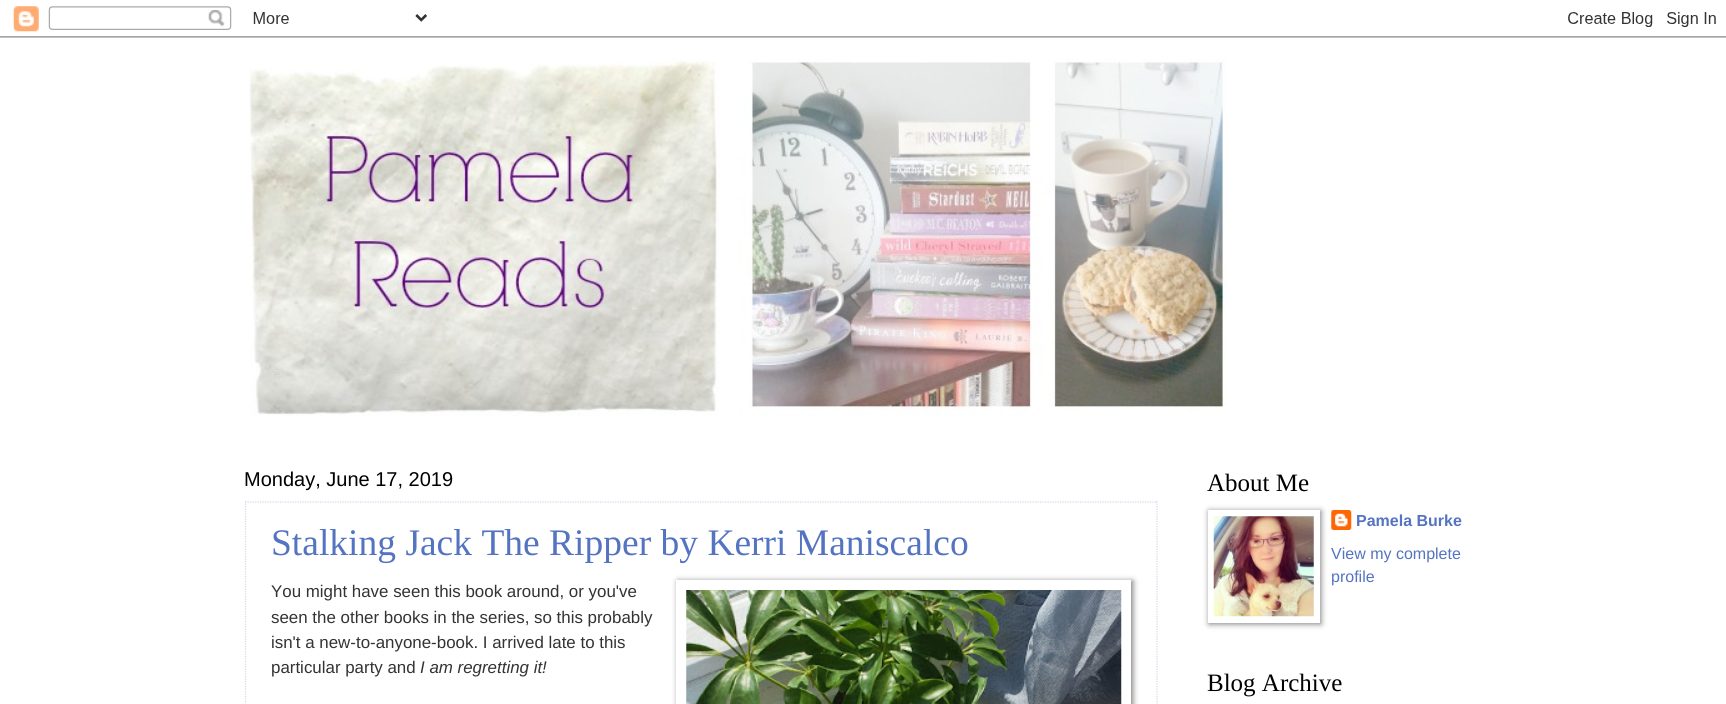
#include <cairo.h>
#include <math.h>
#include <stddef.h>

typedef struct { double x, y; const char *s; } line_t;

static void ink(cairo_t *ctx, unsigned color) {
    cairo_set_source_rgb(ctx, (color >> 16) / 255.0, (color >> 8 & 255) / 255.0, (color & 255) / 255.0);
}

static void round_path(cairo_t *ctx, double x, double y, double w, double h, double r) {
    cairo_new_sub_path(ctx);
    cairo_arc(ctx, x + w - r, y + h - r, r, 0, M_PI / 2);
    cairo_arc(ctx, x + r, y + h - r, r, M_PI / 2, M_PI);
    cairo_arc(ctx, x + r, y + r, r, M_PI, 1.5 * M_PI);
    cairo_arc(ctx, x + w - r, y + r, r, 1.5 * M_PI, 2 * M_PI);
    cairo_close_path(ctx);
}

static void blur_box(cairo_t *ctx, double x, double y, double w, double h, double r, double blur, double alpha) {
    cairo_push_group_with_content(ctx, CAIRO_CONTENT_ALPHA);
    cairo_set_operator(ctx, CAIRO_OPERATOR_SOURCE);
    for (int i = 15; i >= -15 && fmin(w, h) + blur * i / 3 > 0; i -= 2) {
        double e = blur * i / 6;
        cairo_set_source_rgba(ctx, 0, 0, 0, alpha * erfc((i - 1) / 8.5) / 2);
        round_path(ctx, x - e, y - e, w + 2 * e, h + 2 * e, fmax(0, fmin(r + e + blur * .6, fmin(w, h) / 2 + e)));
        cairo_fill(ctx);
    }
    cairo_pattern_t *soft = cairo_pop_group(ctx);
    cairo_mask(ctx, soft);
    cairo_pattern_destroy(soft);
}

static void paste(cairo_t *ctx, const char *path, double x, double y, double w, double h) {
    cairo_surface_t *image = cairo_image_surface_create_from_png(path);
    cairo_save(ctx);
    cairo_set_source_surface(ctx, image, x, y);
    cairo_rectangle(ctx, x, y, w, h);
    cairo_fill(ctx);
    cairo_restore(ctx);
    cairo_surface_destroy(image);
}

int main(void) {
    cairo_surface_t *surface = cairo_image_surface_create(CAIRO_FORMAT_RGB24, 1726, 704);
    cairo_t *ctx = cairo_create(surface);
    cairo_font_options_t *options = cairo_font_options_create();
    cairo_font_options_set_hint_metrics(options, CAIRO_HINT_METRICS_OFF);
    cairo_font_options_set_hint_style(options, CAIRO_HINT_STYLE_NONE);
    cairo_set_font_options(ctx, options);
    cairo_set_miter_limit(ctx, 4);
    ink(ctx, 0xFFFFFF);
    cairo_paint(ctx);
    paste(ctx, "media/1.png", 0, 6, 1726, 32);
    paste(ctx, "media/2.png", 249, 59, 978, 357);
    cairo_select_font_face(ctx, "Liberation Sans", CAIRO_FONT_SLANT_NORMAL, CAIRO_FONT_WEIGHT_NORMAL);
    cairo_set_font_size(ctx, 20);
    ink(ctx, 0x000000);
    cairo_move_to(ctx, 244, 486);
    cairo_show_text(ctx, "Monday, June 17, 2019");
    cairo_new_path(ctx);
    cairo_move_to(ctx, 245, 502);
    cairo_line_to(ctx, 1157.5, 502);
    ink(ctx, 0xD9D2E9);
    cairo_set_line_width(ctx, 1.2);
    cairo_set_dash(ctx, (double[]){1.25, 1.25}, 2, 0);
    cairo_stroke(ctx);
    cairo_new_path(ctx);
    cairo_move_to(ctx, 1157, 501);
    cairo_line_to(ctx, 1157, 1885);
    cairo_stroke(ctx);
    cairo_new_path(ctx);
    cairo_move_to(ctx, 245.5, 501);
    cairo_line_to(ctx, 245.5, 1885);
    cairo_stroke(ctx);
    cairo_select_font_face(ctx, "Liberation Serif", CAIRO_FONT_SLANT_NORMAL, CAIRO_FONT_WEIGHT_NORMAL);
    cairo_set_font_size(ctx, 37.5);
    ink(ctx, 0x5473C0);
    cairo_move_to(ctx, 271, 555);
    cairo_show_text(ctx, "Stalking Jack The Ripper by Kerri Maniscalco");
    cairo_select_font_face(ctx, "Liberation Sans", CAIRO_FONT_SLANT_NORMAL, CAIRO_FONT_WEIGHT_NORMAL);
    cairo_set_font_size(ctx, 16.9);
    ink(ctx, 0x333333);
    cairo_move_to(ctx, 271, 597);
    cairo_show_text(ctx, "You might have seen this book around, or you've");
    ink(ctx, 0x000000);
    blur_box(ctx, 678, 581, 455, 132, 0, 3, 0.5);
    ink(ctx, 0xFFFFFF);
    cairo_rectangle(ctx, 676, 580, 455, 124);
    cairo_fill(ctx);
    paste(ctx, "media/3.png", 686, 590, 436, 114);
    ink(ctx, 0x333333);
    {
        static const line_t items[] = {
            {271, 623, "seen the other books in the series, so this probably"},
            {271, 648, "isn't a new-to-anyone-book. I arrived late to this"},
            {271, 673, "particular party and"},
        };
        for (size_t i = 0; i < sizeof items / sizeof *items; i++) {
            cairo_move_to(ctx, items[i].x, items[i].y);
            cairo_show_text(ctx, items[i].s);
        }
    }
    cairo_select_font_face(ctx, "Liberation Sans", CAIRO_FONT_SLANT_ITALIC, CAIRO_FONT_WEIGHT_NORMAL);
    cairo_move_to(ctx, 420, 673);
    cairo_show_text(ctx, "I am regretting it!");
    cairo_select_font_face(ctx, "Liberation Serif", CAIRO_FONT_SLANT_NORMAL, CAIRO_FONT_WEIGHT_NORMAL);
    cairo_set_font_size(ctx, 25);
    ink(ctx, 0x000000);
    cairo_move_to(ctx, 1207, 491);
    cairo_show_text(ctx, "About Me");
    ink(ctx, 0x000000);
    blur_box(ctx, 1209, 511, 112, 113, 0, 3, 0.5);
    ink(ctx, 0xFFFFFF);
    cairo_rectangle(ctx, 1208, 510, 112, 113);
    cairo_fill(ctx);
    paste(ctx, "media/4.png", 1213, 516, 101, 101);
    paste(ctx, "media/5.png", 1331, 510, 21, 20);
    cairo_select_font_face(ctx, "Liberation Sans", CAIRO_FONT_SLANT_NORMAL, CAIRO_FONT_WEIGHT_BOLD);
    cairo_set_font_size(ctx, 16);
    ink(ctx, 0x5473C0);
    cairo_move_to(ctx, 1356, 526);
    cairo_show_text(ctx, "Pamela Burke");
    cairo_select_font_face(ctx, "Liberation Sans", CAIRO_FONT_SLANT_NORMAL, CAIRO_FONT_WEIGHT_NORMAL);
    cairo_move_to(ctx, 1331, 559);
    cairo_show_text(ctx, "View my complete");
    cairo_move_to(ctx, 1331, 582);
    cairo_show_text(ctx, "profile");
    cairo_select_font_face(ctx, "Liberation Serif", CAIRO_FONT_SLANT_NORMAL, CAIRO_FONT_WEIGHT_NORMAL);
    cairo_set_font_size(ctx, 25);
    ink(ctx, 0x000000);
    cairo_move_to(ctx, 1207, 691);
    cairo_show_text(ctx, "Blog Archive");
    cairo_surface_write_to_png(surface, "image.png");
    cairo_font_options_destroy(options);
    cairo_destroy(ctx);
    cairo_surface_destroy(surface);
    return 0;
}
